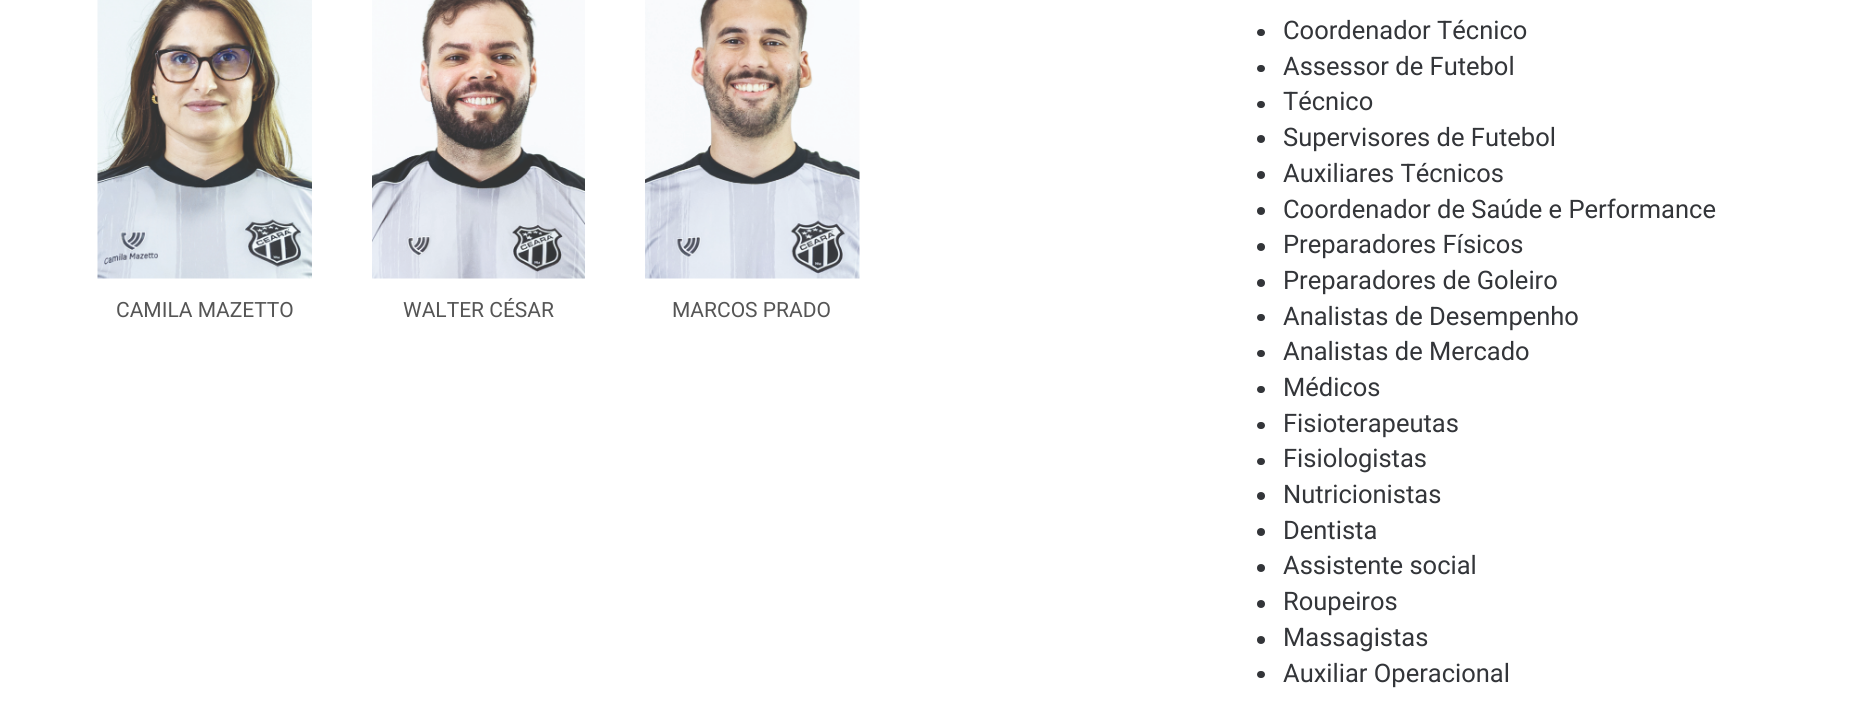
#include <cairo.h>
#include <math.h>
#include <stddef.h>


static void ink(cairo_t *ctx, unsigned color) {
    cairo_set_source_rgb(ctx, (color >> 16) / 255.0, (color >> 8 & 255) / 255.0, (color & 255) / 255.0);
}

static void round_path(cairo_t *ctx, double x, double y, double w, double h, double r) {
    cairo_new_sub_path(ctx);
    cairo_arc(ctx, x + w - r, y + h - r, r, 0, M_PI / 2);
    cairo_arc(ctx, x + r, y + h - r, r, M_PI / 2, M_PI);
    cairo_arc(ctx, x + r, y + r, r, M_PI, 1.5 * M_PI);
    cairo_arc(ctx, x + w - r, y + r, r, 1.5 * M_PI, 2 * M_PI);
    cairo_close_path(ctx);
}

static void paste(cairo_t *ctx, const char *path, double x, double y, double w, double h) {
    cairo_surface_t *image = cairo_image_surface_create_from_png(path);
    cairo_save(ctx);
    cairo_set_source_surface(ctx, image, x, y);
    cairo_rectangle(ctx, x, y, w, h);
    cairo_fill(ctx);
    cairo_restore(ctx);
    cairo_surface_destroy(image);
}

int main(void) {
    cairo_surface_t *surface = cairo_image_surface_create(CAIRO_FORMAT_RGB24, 1860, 716);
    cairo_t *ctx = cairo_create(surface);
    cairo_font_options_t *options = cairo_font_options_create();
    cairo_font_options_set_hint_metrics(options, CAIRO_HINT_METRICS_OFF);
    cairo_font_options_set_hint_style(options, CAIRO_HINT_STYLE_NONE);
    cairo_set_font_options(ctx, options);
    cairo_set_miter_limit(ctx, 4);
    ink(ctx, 0xFFFFFF);
    cairo_paint(ctx);
    paste(ctx, "media/1.png", 97, 0, 215, 279);
    cairo_select_font_face(ctx, "Roboto", CAIRO_FONT_SLANT_NORMAL, CAIRO_FONT_WEIGHT_NORMAL);
    cairo_set_font_size(ctx, 21);
    ink(ctx, 0x555555);
    cairo_move_to(ctx, 116, 317);
    cairo_show_text(ctx, "CAMILA MAZETTO");
    paste(ctx, "media/2.png", 372, 0, 213, 279);
    cairo_move_to(ctx, 403, 317);
    cairo_show_text(ctx, "WALTER CÉSAR");
    paste(ctx, "media/3.png", 645, 0, 215, 279);
    cairo_move_to(ctx, 672, 317);
    cairo_show_text(ctx, "MARCOS PRADO");
    ink(ctx, 0x333539);
    round_path(ctx, 1257, 29, 8, 7, 3.5);
    cairo_fill(ctx);
    cairo_set_font_size(ctx, 25.5);
    cairo_move_to(ctx, 1283, 39);
    cairo_show_text(ctx, "Coordenador Técnico");
    round_path(ctx, 1257, 65, 8, 7, 3.5);
    cairo_fill(ctx);
    cairo_move_to(ctx, 1283, 75);
    cairo_show_text(ctx, "Assessor de Futebol");
    round_path(ctx, 1257, 101, 8, 7, 3.5);
    cairo_fill(ctx);
    cairo_move_to(ctx, 1283, 110);
    cairo_show_text(ctx, "Técnico");
    cairo_new_path(ctx);
    cairo_arc(ctx, 1261, 139, 4, 0, 2 * M_PI);
    cairo_fill(ctx);
    cairo_move_to(ctx, 1283, 146);
    cairo_show_text(ctx, "Supervisores de Futebol");
    cairo_new_path(ctx);
    cairo_arc(ctx, 1261, 175, 4, 0, 2 * M_PI);
    cairo_fill(ctx);
    cairo_move_to(ctx, 1283, 182);
    cairo_show_text(ctx, "Auxiliares Técnicos");
    cairo_new_path(ctx);
    cairo_arc(ctx, 1261, 211, 4, 0, 2 * M_PI);
    cairo_fill(ctx);
    cairo_move_to(ctx, 1283, 218);
    cairo_show_text(ctx, "Coordenador de Saúde e Performance");
    cairo_new_path(ctx);
    cairo_arc(ctx, 1261, 247, 4, 0, 2 * M_PI);
    cairo_fill(ctx);
    cairo_move_to(ctx, 1283, 253);
    cairo_show_text(ctx, "Preparadores Físicos");
    cairo_new_path(ctx);
    cairo_arc(ctx, 1261, 283, 4, 0, 2 * M_PI);
    cairo_fill(ctx);
    cairo_move_to(ctx, 1283, 289);
    cairo_show_text(ctx, "Preparadores de Goleiro");
    round_path(ctx, 1257, 314, 8, 7, 3.5);
    cairo_fill(ctx);
    cairo_move_to(ctx, 1283, 325);
    cairo_show_text(ctx, "Analistas de Desempenho");
    round_path(ctx, 1257, 350, 8, 7, 3.5);
    cairo_fill(ctx);
    cairo_move_to(ctx, 1283, 360);
    cairo_show_text(ctx, "Analistas de Mercado");
    round_path(ctx, 1257, 386, 8, 7, 3.5);
    cairo_fill(ctx);
    cairo_move_to(ctx, 1283, 396);
    cairo_show_text(ctx, "Médicos");
    round_path(ctx, 1257, 422, 8, 7, 3.5);
    cairo_fill(ctx);
    cairo_move_to(ctx, 1283, 432);
    cairo_show_text(ctx, "Fisioterapeutas");
    round_path(ctx, 1257, 458, 8, 7, 3.5);
    cairo_fill(ctx);
    cairo_move_to(ctx, 1283, 467);
    cairo_show_text(ctx, "Fisiologistas");
    cairo_new_path(ctx);
    cairo_arc(ctx, 1261, 496, 4, 0, 2 * M_PI);
    cairo_fill(ctx);
    cairo_move_to(ctx, 1283, 503);
    cairo_show_text(ctx, "Nutricionistas");
    cairo_new_path(ctx);
    cairo_arc(ctx, 1261, 532, 4, 0, 2 * M_PI);
    cairo_fill(ctx);
    cairo_move_to(ctx, 1283, 539);
    cairo_show_text(ctx, "Dentista");
    cairo_new_path(ctx);
    cairo_arc(ctx, 1261, 568, 4, 0, 2 * M_PI);
    cairo_fill(ctx);
    cairo_move_to(ctx, 1283, 574);
    cairo_show_text(ctx, "Assistente social");
    cairo_new_path(ctx);
    cairo_arc(ctx, 1261, 604, 4, 0, 2 * M_PI);
    cairo_fill(ctx);
    cairo_move_to(ctx, 1283, 610);
    cairo_show_text(ctx, "Roupeiros");
    cairo_new_path(ctx);
    cairo_arc(ctx, 1261, 640, 4, 0, 2 * M_PI);
    cairo_fill(ctx);
    cairo_move_to(ctx, 1283, 646);
    cairo_show_text(ctx, "Massagistas");
    round_path(ctx, 1257, 671, 8, 7, 3.5);
    cairo_fill(ctx);
    cairo_move_to(ctx, 1283, 682);
    cairo_show_text(ctx, "Auxiliar Operacional");
    cairo_surface_write_to_png(surface, "image.png");
    cairo_font_options_destroy(options);
    cairo_destroy(ctx);
    cairo_surface_destroy(surface);
    return 0;
}
